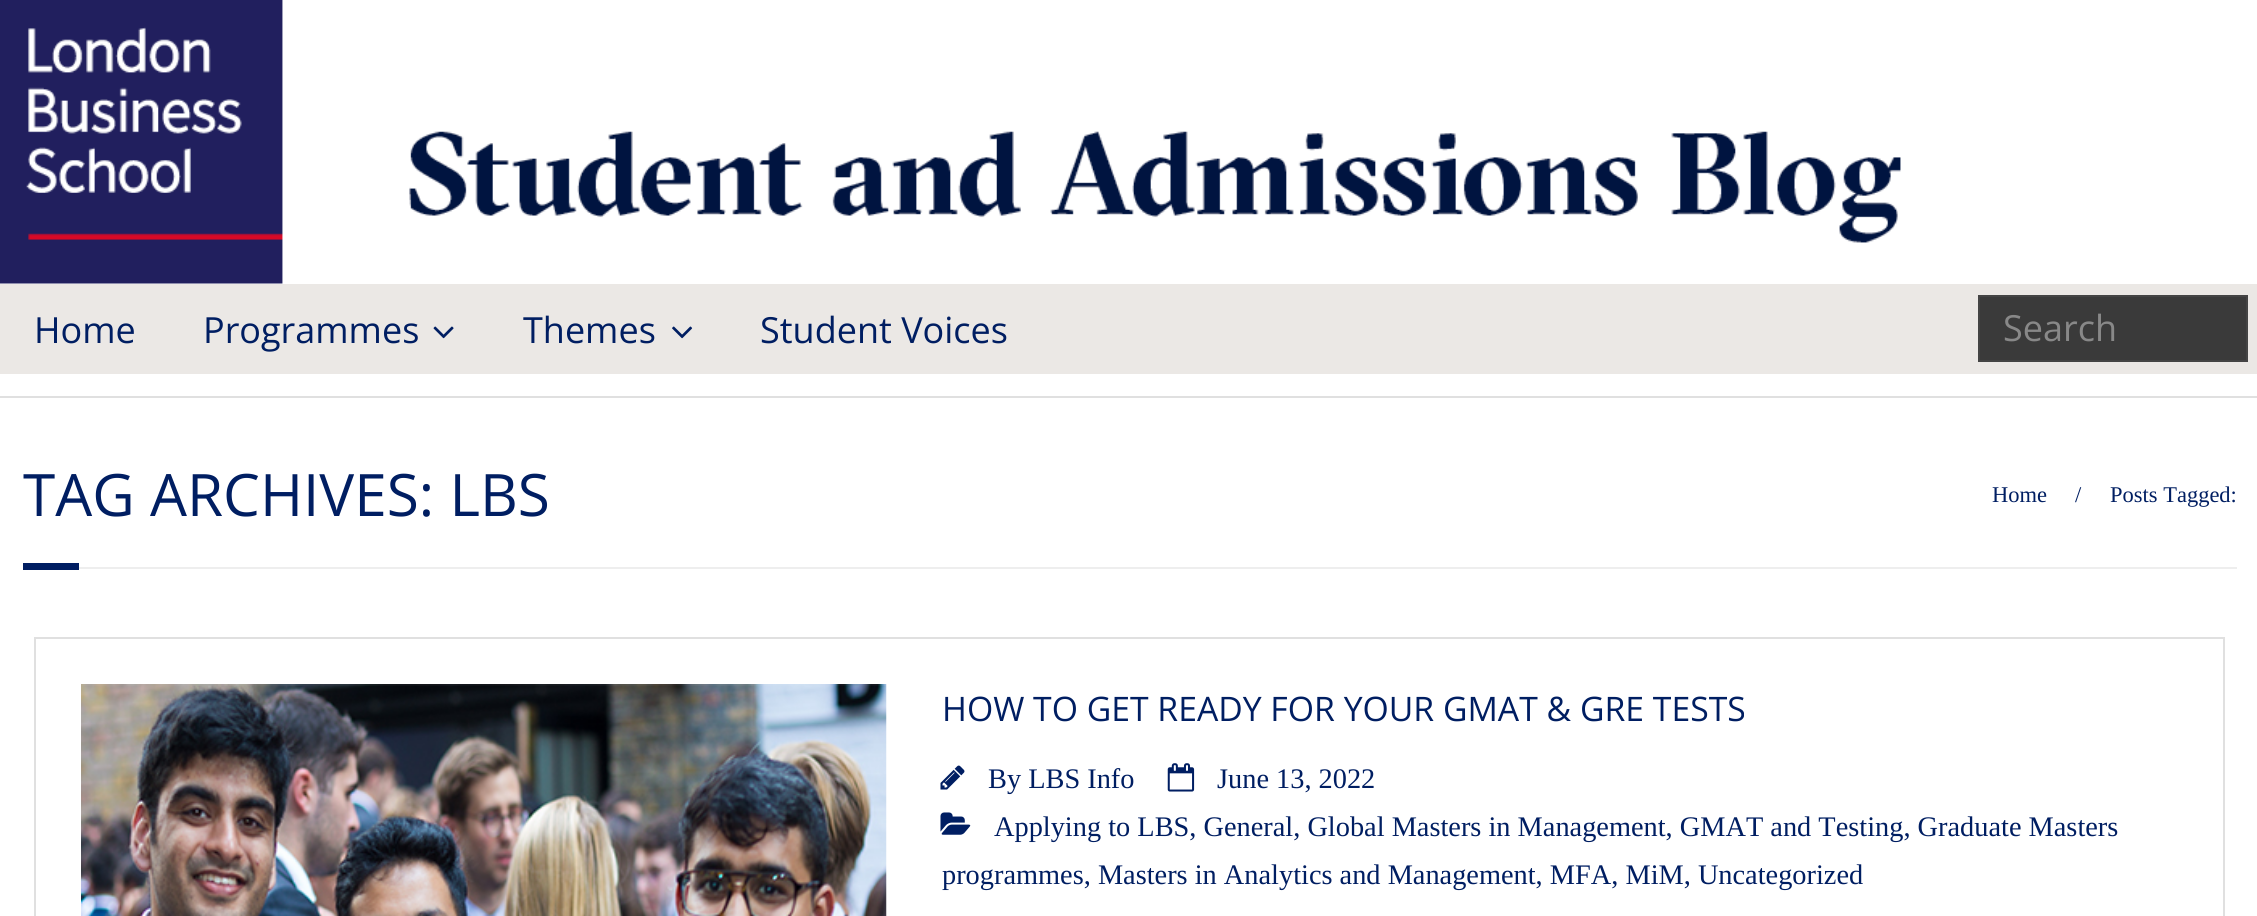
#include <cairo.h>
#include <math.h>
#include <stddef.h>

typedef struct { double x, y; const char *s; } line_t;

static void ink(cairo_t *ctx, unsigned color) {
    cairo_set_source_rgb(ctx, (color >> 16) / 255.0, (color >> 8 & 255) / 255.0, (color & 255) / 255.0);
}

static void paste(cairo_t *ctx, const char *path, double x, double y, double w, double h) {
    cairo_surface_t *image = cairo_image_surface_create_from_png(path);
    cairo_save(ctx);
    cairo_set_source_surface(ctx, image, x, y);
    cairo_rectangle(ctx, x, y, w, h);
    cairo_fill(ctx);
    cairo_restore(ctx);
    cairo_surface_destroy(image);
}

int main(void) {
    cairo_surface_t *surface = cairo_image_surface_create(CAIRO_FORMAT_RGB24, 2257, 916);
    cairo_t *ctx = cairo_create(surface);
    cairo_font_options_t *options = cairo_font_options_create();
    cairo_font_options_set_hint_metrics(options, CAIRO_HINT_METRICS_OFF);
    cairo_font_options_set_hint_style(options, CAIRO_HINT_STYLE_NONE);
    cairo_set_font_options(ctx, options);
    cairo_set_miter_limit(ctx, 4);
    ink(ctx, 0xFFFFFF);
    cairo_paint(ctx);
    paste(ctx, "media/1.png", 0, 0, 1901, 284);
    ink(ctx, 0xEBE8E5);
    cairo_rectangle(ctx, 0, 284, 2257, 90);
    cairo_fill(ctx);
    cairo_select_font_face(ctx, "Open Sans", CAIRO_FONT_SLANT_NORMAL, CAIRO_FONT_WEIGHT_NORMAL);
    cairo_set_font_size(ctx, 36);
    ink(ctx, 0x001E62);
    cairo_move_to(ctx, 34, 343);
    cairo_show_text(ctx, "Home");
    cairo_move_to(ctx, 203, 343);
    cairo_show_text(ctx, "Programmes");
    paste(ctx, "media/2.png", 433, 326, 21, 13);
    cairo_move_to(ctx, 523, 343);
    cairo_show_text(ctx, "Themes");
    paste(ctx, "media/3.png", 672, 326, 21, 13);
    cairo_move_to(ctx, 760, 343);
    cairo_show_text(ctx, "Student Voices");
    ink(ctx, 0x3A3A3A);
    cairo_rectangle(ctx, 1979, 296, 268, 65);
    cairo_fill_preserve(ctx);
    ink(ctx, 0x444444);
    cairo_stroke(ctx);
    ink(ctx, 0x888888);
    cairo_move_to(ctx, 2003, 341);
    cairo_show_text(ctx, "Search");
    ink(ctx, 0xE0E0E0);
    cairo_rectangle(ctx, 0, 396, 2257, 2);
    cairo_fill(ctx);
    cairo_set_font_size(ctx, 58.5);
    ink(ctx, 0x001E62);
    cairo_move_to(ctx, 23, 516);
    cairo_show_text(ctx, "TAG ARCHIVES: LBS");
    cairo_select_font_face(ctx, "Liberation Serif", CAIRO_FONT_SLANT_NORMAL, CAIRO_FONT_WEIGHT_NORMAL);
    cairo_set_font_size(ctx, 22.5);
    {
        static const line_t items[] = {
            {1992, 502, "Home"},
            {2075, 502, "/"},
            {2110, 502, "Posts Tagged:"},
        };
        for (size_t i = 0; i < sizeof items / sizeof *items; i++) {
            cairo_move_to(ctx, items[i].x, items[i].y);
            cairo_show_text(ctx, items[i].s);
        }
    }
    cairo_rectangle(ctx, 23, 563, 56, 7);
    cairo_fill(ctx);
    ink(ctx, 0xEEEEEE);
    cairo_rectangle(ctx, 79, 567, 2158, 2);
    cairo_fill(ctx);
    cairo_rectangle(ctx, 35, 638, 2189, 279);
    ink(ctx, 0xE0E0E0);
    cairo_stroke(ctx);
    paste(ctx, "media/4.png", 81, 684, 806, 232);
    cairo_select_font_face(ctx, "Open Sans", CAIRO_FONT_SLANT_NORMAL, CAIRO_FONT_WEIGHT_NORMAL);
    cairo_set_font_size(ctx, 33.75);
    ink(ctx, 0x001E62);
    cairo_move_to(ctx, 942, 721);
    cairo_show_text(ctx, "HOW TO GET READY FOR YOUR GMAT & GRE TESTS");
    paste(ctx, "media/5.png", 940, 765, 25, 25);
    cairo_select_font_face(ctx, "Liberation Serif", CAIRO_FONT_SLANT_NORMAL, CAIRO_FONT_WEIGHT_NORMAL);
    cairo_set_font_size(ctx, 28.35);
    cairo_move_to(ctx, 988, 788);
    cairo_show_text(ctx, "By LBS Info");
    paste(ctx, "media/6.png", 1167, 763, 28, 29);
    cairo_move_to(ctx, 1217, 788);
    cairo_show_text(ctx, "June 13, 2022");
    paste(ctx, "media/7.png", 940, 812, 31, 23);
    cairo_move_to(ctx, 994, 836);
    cairo_show_text(ctx, "Applying to LBS, General, Global Masters in Management, GMAT and Testing, Graduate Masters");
    cairo_move_to(ctx, 942, 884);
    cairo_show_text(ctx, "programmes, Masters in Analytics and Management, MFA, MiM, Uncategorized");
    cairo_surface_write_to_png(surface, "image.png");
    cairo_font_options_destroy(options);
    cairo_destroy(ctx);
    cairo_surface_destroy(surface);
    return 0;
}
